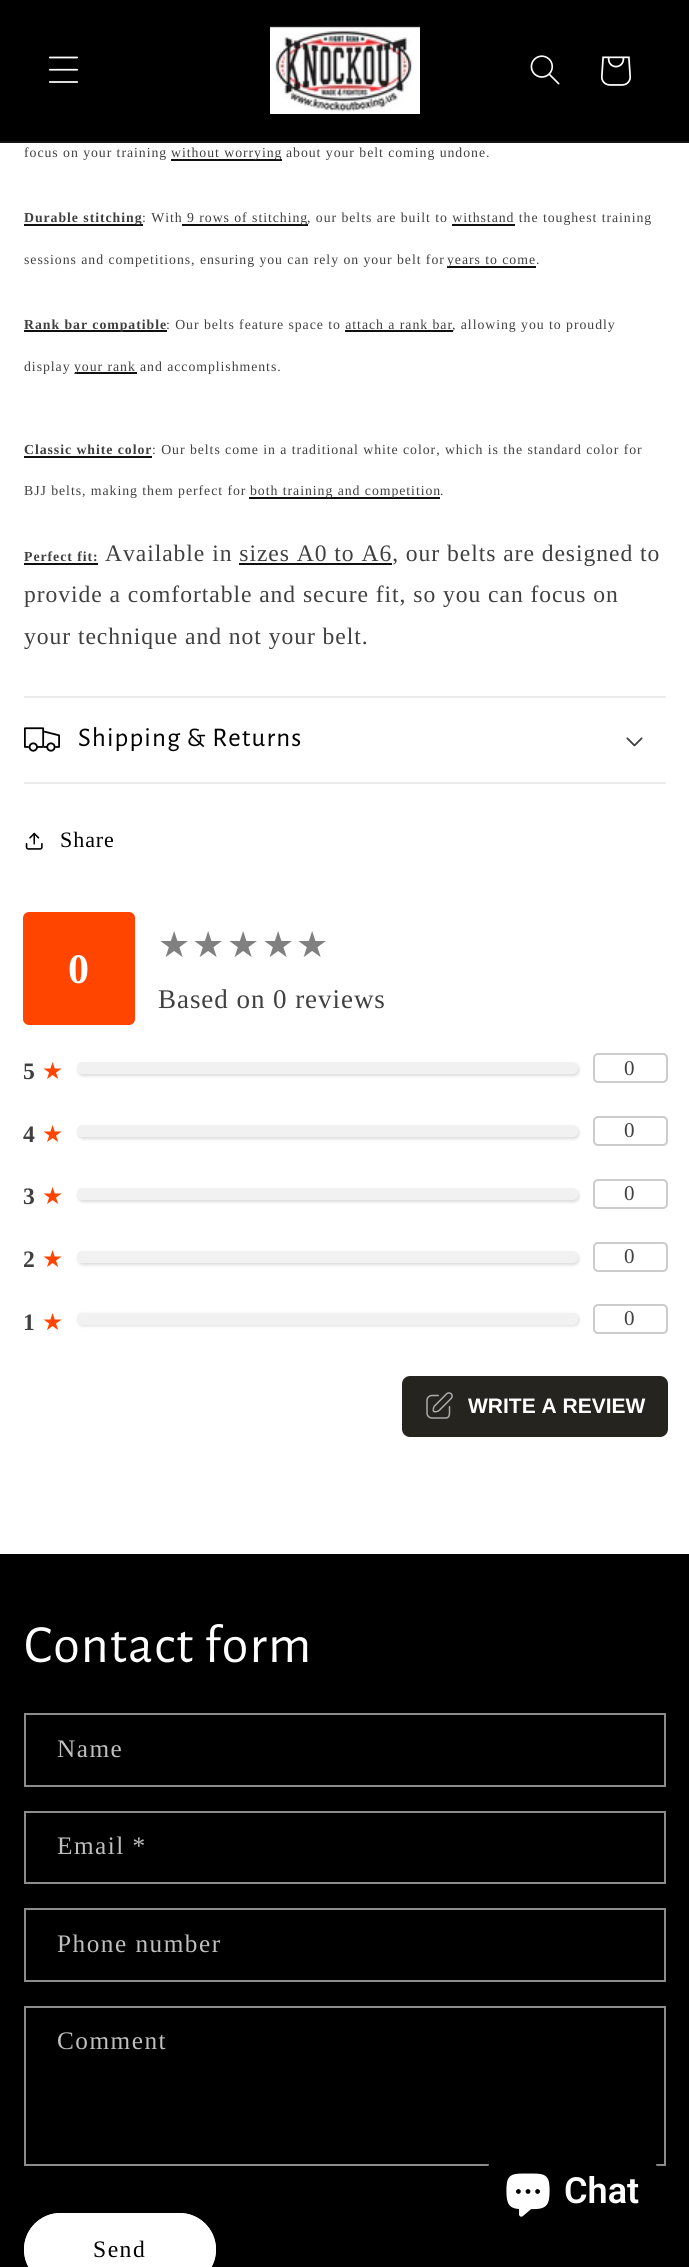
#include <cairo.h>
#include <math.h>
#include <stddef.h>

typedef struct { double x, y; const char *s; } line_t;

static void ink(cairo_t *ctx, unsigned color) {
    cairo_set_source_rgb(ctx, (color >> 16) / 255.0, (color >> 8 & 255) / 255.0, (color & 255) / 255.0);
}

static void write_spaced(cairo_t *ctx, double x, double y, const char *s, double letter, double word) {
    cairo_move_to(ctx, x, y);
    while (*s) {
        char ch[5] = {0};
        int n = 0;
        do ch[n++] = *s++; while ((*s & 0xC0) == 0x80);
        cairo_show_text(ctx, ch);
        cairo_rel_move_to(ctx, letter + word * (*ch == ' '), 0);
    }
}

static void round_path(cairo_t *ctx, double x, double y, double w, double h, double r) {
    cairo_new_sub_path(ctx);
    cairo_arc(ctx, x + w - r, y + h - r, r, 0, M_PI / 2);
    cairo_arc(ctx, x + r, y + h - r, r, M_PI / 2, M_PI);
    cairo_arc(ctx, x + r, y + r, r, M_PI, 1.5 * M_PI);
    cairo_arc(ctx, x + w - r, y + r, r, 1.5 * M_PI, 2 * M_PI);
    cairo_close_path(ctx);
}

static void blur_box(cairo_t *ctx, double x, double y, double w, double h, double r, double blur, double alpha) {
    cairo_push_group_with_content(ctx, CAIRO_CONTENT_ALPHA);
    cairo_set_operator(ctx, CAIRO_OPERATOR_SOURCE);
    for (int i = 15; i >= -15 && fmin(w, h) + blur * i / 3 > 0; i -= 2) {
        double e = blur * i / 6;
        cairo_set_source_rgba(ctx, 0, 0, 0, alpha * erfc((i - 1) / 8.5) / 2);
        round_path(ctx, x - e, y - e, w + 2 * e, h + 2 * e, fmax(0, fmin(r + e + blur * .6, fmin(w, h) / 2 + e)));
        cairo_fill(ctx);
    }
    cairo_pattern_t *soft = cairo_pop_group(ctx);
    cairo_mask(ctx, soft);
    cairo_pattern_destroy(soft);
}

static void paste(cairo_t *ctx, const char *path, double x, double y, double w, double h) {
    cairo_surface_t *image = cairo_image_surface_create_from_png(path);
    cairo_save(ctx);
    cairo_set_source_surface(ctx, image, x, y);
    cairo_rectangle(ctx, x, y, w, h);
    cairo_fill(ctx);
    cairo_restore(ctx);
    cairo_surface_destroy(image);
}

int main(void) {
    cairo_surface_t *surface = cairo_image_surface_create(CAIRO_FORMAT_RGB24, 689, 2267);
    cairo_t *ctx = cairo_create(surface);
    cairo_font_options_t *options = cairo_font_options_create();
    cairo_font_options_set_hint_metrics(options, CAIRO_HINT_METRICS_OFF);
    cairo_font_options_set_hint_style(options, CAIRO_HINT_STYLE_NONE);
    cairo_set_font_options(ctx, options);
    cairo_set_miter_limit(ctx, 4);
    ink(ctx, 0xFFFFFF);
    cairo_paint(ctx);
    ink(ctx, 0x000000);
    cairo_rectangle(ctx, 0, 0, 689, 141);
    cairo_fill(ctx);
    ink(ctx, 0x141414);
    cairo_rectangle(ctx, 0, 141, 689, 2);
    cairo_fill(ctx);
    paste(ctx, "media/1.png", 48, 56, 31, 27);
    paste(ctx, "media/2.png", 270, 26, 150, 88);
    paste(ctx, "media/3.png", 530, 55, 30, 30);
    paste(ctx, "media/4.png", 601, 56, 31, 30);
    cairo_select_font_face(ctx, "Liberation Serif", CAIRO_FONT_SLANT_NORMAL, CAIRO_FONT_WEIGHT_NORMAL);
    cairo_set_font_size(ctx, 13.8);
    ink(ctx, 0x404040);
    write_spaced(ctx, 24, 157, "focus on your training", 0.95, 0);
    ink(ctx, 0x101010);
    cairo_rectangle(ctx, 171, 159, 111, 2);
    cairo_fill(ctx);
    ink(ctx, 0x404040);
    write_spaced(ctx, 171, 157, "without worrying", 0.95, 0);
    write_spaced(ctx, 286, 157, "about your belt coming undone.", 0.95, 0);
    ink(ctx, 0x101010);
    cairo_rectangle(ctx, 24, 224, 119, 2);
    cairo_fill(ctx);
    cairo_select_font_face(ctx, "Liberation Serif", CAIRO_FONT_SLANT_NORMAL, CAIRO_FONT_WEIGHT_BOLD);
    ink(ctx, 0x404040);
    write_spaced(ctx, 24, 222, "Durable stitching", 0.95, 0);
    cairo_select_font_face(ctx, "Liberation Serif", CAIRO_FONT_SLANT_NORMAL, CAIRO_FONT_WEIGHT_NORMAL);
    write_spaced(ctx, 142, 222, ": With", 0.95, 0);
    ink(ctx, 0x101010);
    cairo_rectangle(ctx, 182, 224, 126, 2);
    cairo_fill(ctx);
    ink(ctx, 0x404040);
    write_spaced(ctx, 187, 222, "9 rows of stitching", 0.95, 0);
    write_spaced(ctx, 307, 222, ", our belts are built to withstand the toughest training", 0.95, 0);
    ink(ctx, 0x101010);
    cairo_rectangle(ctx, 452, 224, 63, 2);
    cairo_fill(ctx);
    ink(ctx, 0x404040);
    write_spaced(ctx, 24, 264, "sessions and competitions, ensuring you can rely on your belt for", 0.95, 0);
    ink(ctx, 0x101010);
    cairo_rectangle(ctx, 447, 266, 89, 2);
    cairo_fill(ctx);
    ink(ctx, 0x404040);
    write_spaced(ctx, 447, 264, "years to come", 0.95, 0);
    write_spaced(ctx, 536, 264, ".", 0.95, 0);
    ink(ctx, 0x101010);
    cairo_rectangle(ctx, 24, 330, 143, 2);
    cairo_fill(ctx);
    cairo_select_font_face(ctx, "Liberation Serif", CAIRO_FONT_SLANT_NORMAL, CAIRO_FONT_WEIGHT_BOLD);
    ink(ctx, 0x404040);
    write_spaced(ctx, 24, 329, "Rank bar compatible", 0.95, 0);
    cairo_select_font_face(ctx, "Liberation Serif", CAIRO_FONT_SLANT_NORMAL, CAIRO_FONT_WEIGHT_NORMAL);
    write_spaced(ctx, 166, 329, ": Our belts feature space to attach a rank bar", 0.95, 0);
    ink(ctx, 0x101010);
    cairo_rectangle(ctx, 345, 330, 108, 2);
    cairo_fill(ctx);
    ink(ctx, 0x404040);
    write_spaced(ctx, 452, 329, ", allowing you to proudly", 0.95, 0);
    write_spaced(ctx, 24, 371, "display", 0.95, 0);
    ink(ctx, 0x101010);
    cairo_rectangle(ctx, 75, 372, 62, 2);
    cairo_fill(ctx);
    ink(ctx, 0x404040);
    write_spaced(ctx, 74, 371, "your rank", 0.95, 0);
    write_spaced(ctx, 140, 371, "and accomplishments.", 0.95, 0);
    cairo_select_font_face(ctx, "Liberation Serif", CAIRO_FONT_SLANT_NORMAL, CAIRO_FONT_WEIGHT_BOLD);
    write_spaced(ctx, 24, 454, "Classic white color", 0.95, 0);
    cairo_select_font_face(ctx, "Liberation Serif", CAIRO_FONT_SLANT_NORMAL, CAIRO_FONT_WEIGHT_NORMAL);
    write_spaced(ctx, 152, 454, ": Our belts come in a traditional white color, which is the standard color for", 0.95, 0);
    ink(ctx, 0x101010);
    cairo_rectangle(ctx, 24, 456, 128, 2);
    cairo_fill(ctx);
    ink(ctx, 0x404040);
    write_spaced(ctx, 24, 495, "BJJ belts, making them perfect for", 0.95, 0);
    ink(ctx, 0x101010);
    cairo_rectangle(ctx, 249, 497, 191, 2);
    cairo_fill(ctx);
    ink(ctx, 0x404040);
    write_spaced(ctx, 250, 495, "both training and competition", 0.95, 0);
    write_spaced(ctx, 440, 495, ".", 0.95, 0);
    cairo_select_font_face(ctx, "Liberation Serif", CAIRO_FONT_SLANT_NORMAL, CAIRO_FONT_WEIGHT_BOLD);
    write_spaced(ctx, 24, 561, "Perfect fit:", 0.95, 0);
    ink(ctx, 0x101010);
    cairo_rectangle(ctx, 24, 563, 74, 2);
    cairo_fill(ctx);
    cairo_select_font_face(ctx, "Liberation Serif", CAIRO_FONT_SLANT_NORMAL, CAIRO_FONT_WEIGHT_NORMAL);
    cairo_set_font_size(ctx, 23.6);
    ink(ctx, 0x404040);
    write_spaced(ctx, 105, 561, "Available in sizes A0 to A6, our belts are designed to", 0.95, 0);
    ink(ctx, 0x101010);
    cairo_rectangle(ctx, 239, 563, 153, 2);
    cairo_fill(ctx);
    ink(ctx, 0x404040);
    write_spaced(ctx, 24, 602, "provide a comfortable and secure fit, so you can focus on", 0.95, 0);
    write_spaced(ctx, 24, 644, "your technique and not your belt.", 0.95, 0);
    ink(ctx, 0xEBEBEB);
    cairo_rectangle(ctx, 24, 696, 642, 2);
    cairo_fill(ctx);
    cairo_rectangle(ctx, 24, 782, 642, 2);
    cairo_fill(ctx);
    paste(ctx, "media/5.png", 24, 727, 36, 25);
    cairo_select_font_face(ctx, "Alegreya Sans", CAIRO_FONT_SLANT_NORMAL, CAIRO_FONT_WEIGHT_NORMAL);
    cairo_set_font_size(ctx, 27);
    ink(ctx, 0x000000);
    write_spaced(ctx, 78, 746, "Shipping & Returns", 1.1, 0);
    paste(ctx, "media/6.png", 626, 737, 17, 10);
    paste(ctx, "media/7.png", 25, 832, 18, 18);
    cairo_select_font_face(ctx, "Liberation Serif", CAIRO_FONT_SLANT_NORMAL, CAIRO_FONT_WEIGHT_NORMAL);
    cairo_set_font_size(ctx, 22);
    write_spaced(ctx, 60, 847, "Share", 0.95, 0);
    ink(ctx, 0xFF4500);
    round_path(ctx, 23, 912, 112, 113, 6);
    cairo_fill(ctx);
    cairo_select_font_face(ctx, "Liberation Serif", CAIRO_FONT_SLANT_NORMAL, CAIRO_FONT_WEIGHT_BOLD);
    cairo_set_font_size(ctx, 42);
    ink(ctx, 0xFFFFFF);
    write_spaced(ctx, 68, 983, "0", 0.95, 0);
    cairo_select_font_face(ctx, "DejaVu Sans", CAIRO_FONT_SLANT_NORMAL, CAIRO_FONT_WEIGHT_NORMAL);
    cairo_set_font_size(ctx, 36);
    ink(ctx, 0x808080);
    {
        static const line_t items[] = {
            {158, 957, "★"},
            {192, 957, "★"},
            {227, 957, "★"},
            {262, 957, "★"},
            {296, 957, "★"},
        };
        for (size_t i = 0; i < sizeof items / sizeof *items; i++) {
            write_spaced(ctx, items[i].x, items[i].y, items[i].s, 0.95, 0);
        }
    }
    cairo_select_font_face(ctx, "Liberation Serif", CAIRO_FONT_SLANT_NORMAL, CAIRO_FONT_WEIGHT_NORMAL);
    cairo_set_font_size(ctx, 27);
    ink(ctx, 0x404040);
    write_spaced(ctx, 158, 1008, "Based on 0 reviews", 0.95, 0);
    cairo_select_font_face(ctx, "Liberation Serif", CAIRO_FONT_SLANT_NORMAL, CAIRO_FONT_WEIGHT_BOLD);
    cairo_set_font_size(ctx, 23.6);
    write_spaced(ctx, 23, 1079, "5", 0.95, 0);
    cairo_select_font_face(ctx, "DejaVu Sans", CAIRO_FONT_SLANT_NORMAL, CAIRO_FONT_WEIGHT_NORMAL);
    ink(ctx, 0xFF4500);
    write_spaced(ctx, 42, 1079, "★", 0.95, 0);
    ink(ctx, 0xDBDBDB);
    blur_box(ctx, 78, 1064, 501, 12, 5, 1.5, 1);
    ink(ctx, 0xF1F1F1);
    round_path(ctx, 77, 1062, 501, 12, 5);
    cairo_fill(ctx);
    round_path(ctx, 594, 1054, 73, 28, 4);
    ink(ctx, 0xCCCCCC);
    cairo_stroke(ctx);
    cairo_select_font_face(ctx, "Liberation Serif", CAIRO_FONT_SLANT_NORMAL, CAIRO_FONT_WEIGHT_NORMAL);
    cairo_set_font_size(ctx, 21);
    ink(ctx, 0x404040);
    write_spaced(ctx, 624, 1075, "0", 0.95, 0);
    cairo_select_font_face(ctx, "Liberation Serif", CAIRO_FONT_SLANT_NORMAL, CAIRO_FONT_WEIGHT_BOLD);
    cairo_set_font_size(ctx, 23.6);
    write_spaced(ctx, 23, 1142, "4", 0.95, 0);
    cairo_select_font_face(ctx, "DejaVu Sans", CAIRO_FONT_SLANT_NORMAL, CAIRO_FONT_WEIGHT_NORMAL);
    ink(ctx, 0xFF4500);
    write_spaced(ctx, 42, 1142, "★", 0.95, 0);
    ink(ctx, 0xDBDBDB);
    blur_box(ctx, 78, 1127, 501, 12, 5, 1.5, 1);
    ink(ctx, 0xF1F1F1);
    round_path(ctx, 77, 1125, 501, 12, 5);
    cairo_fill(ctx);
    round_path(ctx, 594, 1117, 73, 28, 4);
    ink(ctx, 0xCCCCCC);
    cairo_stroke(ctx);
    cairo_select_font_face(ctx, "Liberation Serif", CAIRO_FONT_SLANT_NORMAL, CAIRO_FONT_WEIGHT_NORMAL);
    cairo_set_font_size(ctx, 21);
    ink(ctx, 0x404040);
    write_spaced(ctx, 624, 1137, "0", 0.95, 0);
    cairo_select_font_face(ctx, "Liberation Serif", CAIRO_FONT_SLANT_NORMAL, CAIRO_FONT_WEIGHT_BOLD);
    cairo_set_font_size(ctx, 23.6);
    write_spaced(ctx, 23, 1204, "3", 0.95, 0);
    cairo_select_font_face(ctx, "DejaVu Sans", CAIRO_FONT_SLANT_NORMAL, CAIRO_FONT_WEIGHT_NORMAL);
    ink(ctx, 0xFF4500);
    write_spaced(ctx, 42, 1204, "★", 0.95, 0);
    ink(ctx, 0xDBDBDB);
    blur_box(ctx, 78, 1190, 501, 12, 5, 1.5, 1);
    ink(ctx, 0xF1F1F1);
    round_path(ctx, 77, 1188, 501, 12, 5);
    cairo_fill(ctx);
    round_path(ctx, 594, 1180, 73, 28, 4);
    ink(ctx, 0xCCCCCC);
    cairo_stroke(ctx);
    cairo_select_font_face(ctx, "Liberation Serif", CAIRO_FONT_SLANT_NORMAL, CAIRO_FONT_WEIGHT_NORMAL);
    cairo_set_font_size(ctx, 21);
    ink(ctx, 0x404040);
    write_spaced(ctx, 624, 1200, "0", 0.95, 0);
    cairo_select_font_face(ctx, "Liberation Serif", CAIRO_FONT_SLANT_NORMAL, CAIRO_FONT_WEIGHT_BOLD);
    cairo_set_font_size(ctx, 23.6);
    write_spaced(ctx, 23, 1267, "2", 0.95, 0);
    cairo_select_font_face(ctx, "DejaVu Sans", CAIRO_FONT_SLANT_NORMAL, CAIRO_FONT_WEIGHT_NORMAL);
    ink(ctx, 0xFF4500);
    write_spaced(ctx, 42, 1267, "★", 0.95, 0);
    ink(ctx, 0xDBDBDB);
    blur_box(ctx, 78, 1253, 501, 12, 5, 1.5, 1);
    ink(ctx, 0xF1F1F1);
    round_path(ctx, 77, 1251, 501, 12, 5);
    cairo_fill(ctx);
    round_path(ctx, 594, 1243, 73, 28, 4);
    ink(ctx, 0xCCCCCC);
    cairo_stroke(ctx);
    cairo_select_font_face(ctx, "Liberation Serif", CAIRO_FONT_SLANT_NORMAL, CAIRO_FONT_WEIGHT_NORMAL);
    cairo_set_font_size(ctx, 21);
    ink(ctx, 0x404040);
    write_spaced(ctx, 624, 1263, "0", 0.95, 0);
    cairo_select_font_face(ctx, "Liberation Serif", CAIRO_FONT_SLANT_NORMAL, CAIRO_FONT_WEIGHT_BOLD);
    cairo_set_font_size(ctx, 23.6);
    write_spaced(ctx, 23, 1330, "1", 0.95, 0);
    cairo_select_font_face(ctx, "DejaVu Sans", CAIRO_FONT_SLANT_NORMAL, CAIRO_FONT_WEIGHT_NORMAL);
    ink(ctx, 0xFF4500);
    write_spaced(ctx, 42, 1330, "★", 0.95, 0);
    ink(ctx, 0xDBDBDB);
    blur_box(ctx, 78, 1314, 501, 12, 5, 1.5, 1);
    ink(ctx, 0xF1F1F1);
    round_path(ctx, 77, 1313, 501, 12, 5);
    cairo_fill(ctx);
    round_path(ctx, 594, 1305, 73, 28, 4);
    ink(ctx, 0xCCCCCC);
    cairo_stroke(ctx);
    cairo_select_font_face(ctx, "Liberation Serif", CAIRO_FONT_SLANT_NORMAL, CAIRO_FONT_WEIGHT_NORMAL);
    cairo_set_font_size(ctx, 21);
    ink(ctx, 0x404040);
    write_spaced(ctx, 624, 1325, "0", 0.95, 0);
    ink(ctx, 0x25241E);
    round_path(ctx, 402, 1376, 266, 61, 8);
    cairo_fill(ctx);
    paste(ctx, "media/8.png", 426, 1392, 27, 27);
    cairo_select_font_face(ctx, "Liberation Sans", CAIRO_FONT_SLANT_NORMAL, CAIRO_FONT_WEIGHT_BOLD);
    ink(ctx, 0xFFFFFF);
    cairo_move_to(ctx, 468, 1413);
    cairo_show_text(ctx, "WRITE A REVIEW");
    ink(ctx, 0x000000);
    cairo_rectangle(ctx, 0, 1554, 689, 713);
    cairo_fill(ctx);
    cairo_select_font_face(ctx, "Alegreya Sans", CAIRO_FONT_SLANT_NORMAL, CAIRO_FONT_WEIGHT_NORMAL);
    cairo_set_font_size(ctx, 54);
    ink(ctx, 0xFFFFFF);
    write_spaced(ctx, 24, 1662, "Contact form", 1.1, 0);
    cairo_rectangle(ctx, 25, 1714, 640, 72);
    ink(ctx, 0x8C8C8C);
    cairo_stroke(ctx);
    cairo_select_font_face(ctx, "Liberation Serif", CAIRO_FONT_SLANT_NORMAL, CAIRO_FONT_WEIGHT_NORMAL);
    cairo_set_font_size(ctx, 25.25);
    ink(ctx, 0xBFBFBF);
    write_spaced(ctx, 57, 1757, "Name", 1.5, 0);
    cairo_rectangle(ctx, 25, 1812, 640, 71);
    ink(ctx, 0x8C8C8C);
    cairo_stroke(ctx);
    ink(ctx, 0xBFBFBF);
    write_spaced(ctx, 57, 1854, "Email *", 1.5, 0);
    cairo_rectangle(ctx, 25, 1909, 640, 72);
    ink(ctx, 0x8C8C8C);
    cairo_stroke(ctx);
    ink(ctx, 0xBFBFBF);
    write_spaced(ctx, 57, 1952, "Phone number", 1.5, 0);
    cairo_rectangle(ctx, 25, 2007, 640, 158);
    ink(ctx, 0x8C8C8C);
    cairo_stroke(ctx);
    ink(ctx, 0xBFBFBF);
    write_spaced(ctx, 57, 2049, "Comment", 1.5, 0);
    ink(ctx, 0xFFFFFF);
    round_path(ctx, 24, 2213, 192, 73, 36.5);
    cairo_fill(ctx);
    round_path(ctx, 25, 2214, 190, 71, 35.5);
    cairo_stroke(ctx);
    cairo_set_font_size(ctx, 23.6);
    ink(ctx, 0x000000);
    write_spaced(ctx, 93, 2257, "Send", 1.5, 0);
    ink(ctx, 0x000000);
    blur_box(ctx, 488, 2147, 169, 90, 24, 4, 0.15);
    ink(ctx, 0x000000);
    round_path(ctx, 488, 2147, 169, 90, 24);
    cairo_fill(ctx);
    paste(ctx, "media/9.png", 506, 2173, 44, 44);
    cairo_select_font_face(ctx, "Roboto SemiBold", CAIRO_FONT_SLANT_NORMAL, CAIRO_FONT_WEIGHT_NORMAL);
    cairo_set_font_size(ctx, 36);
    ink(ctx, 0xFFFFFF);
    cairo_move_to(ctx, 564, 2203);
    cairo_show_text(ctx, "Chat");
    cairo_surface_write_to_png(surface, "image.png");
    cairo_font_options_destroy(options);
    cairo_destroy(ctx);
    cairo_surface_destroy(surface);
    return 0;
}
